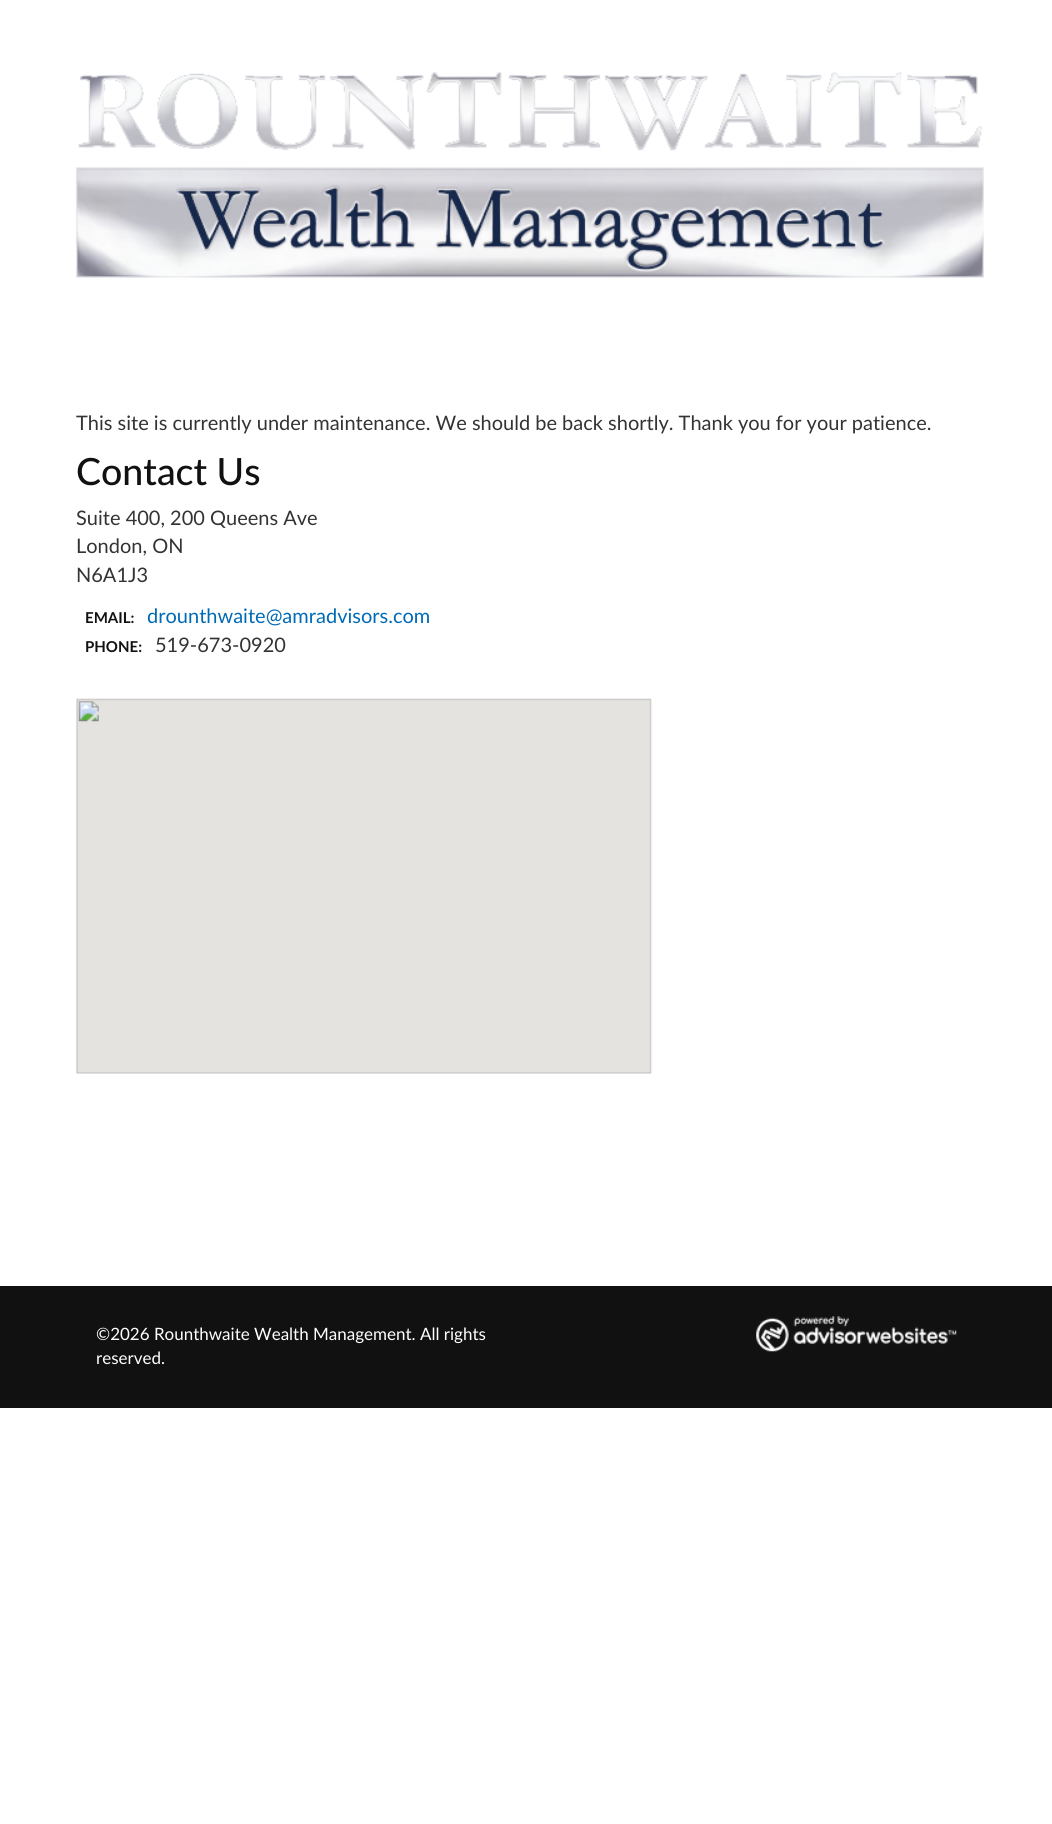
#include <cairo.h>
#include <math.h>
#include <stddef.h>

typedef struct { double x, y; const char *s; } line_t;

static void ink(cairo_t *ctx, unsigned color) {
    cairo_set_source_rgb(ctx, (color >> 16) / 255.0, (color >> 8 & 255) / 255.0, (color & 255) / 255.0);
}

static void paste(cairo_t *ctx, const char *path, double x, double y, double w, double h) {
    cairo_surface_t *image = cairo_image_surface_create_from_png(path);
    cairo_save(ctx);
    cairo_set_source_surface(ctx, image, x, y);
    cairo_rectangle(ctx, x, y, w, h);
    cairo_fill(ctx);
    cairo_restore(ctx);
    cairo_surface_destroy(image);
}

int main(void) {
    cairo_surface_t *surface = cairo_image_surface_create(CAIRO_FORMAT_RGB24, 1052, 1824);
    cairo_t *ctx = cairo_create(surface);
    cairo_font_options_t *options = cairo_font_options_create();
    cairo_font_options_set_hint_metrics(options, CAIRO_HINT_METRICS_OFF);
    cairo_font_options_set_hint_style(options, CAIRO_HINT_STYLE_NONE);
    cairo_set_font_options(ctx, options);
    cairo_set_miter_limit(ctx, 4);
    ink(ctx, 0xFFFFFF);
    cairo_paint(ctx);
    paste(ctx, "media/1.png", 76, 72, 908, 206);
    cairo_select_font_face(ctx, "Lato", CAIRO_FONT_SLANT_NORMAL, CAIRO_FONT_WEIGHT_NORMAL);
    cairo_set_font_size(ctx, 20);
    ink(ctx, 0x333333);
    cairo_move_to(ctx, 76, 430);
    cairo_show_text(ctx, "This site is currently under maintenance. We should be back shortly. Thank you for your patience.");
    cairo_select_font_face(ctx, "Lato Medium", CAIRO_FONT_SLANT_NORMAL, CAIRO_FONT_WEIGHT_NORMAL);
    cairo_set_font_size(ctx, 37.5);
    ink(ctx, 0x111111);
    cairo_move_to(ctx, 76, 485);
    cairo_show_text(ctx, "Contact Us");
    cairo_select_font_face(ctx, "Lato", CAIRO_FONT_SLANT_NORMAL, CAIRO_FONT_WEIGHT_NORMAL);
    cairo_set_font_size(ctx, 20);
    ink(ctx, 0x333333);
    {
        static const line_t items[] = {
            {76, 525, "Suite 400, 200 Queens Ave"},
            {76, 553, "London, ON"},
            {76, 582, "N6A1J3"},
        };
        for (size_t i = 0; i < sizeof items / sizeof *items; i++) {
            cairo_move_to(ctx, items[i].x, items[i].y);
            cairo_show_text(ctx, items[i].s);
        }
    }
    cairo_select_font_face(ctx, "Lato", CAIRO_FONT_SLANT_NORMAL, CAIRO_FONT_WEIGHT_BOLD);
    cairo_set_font_size(ctx, 15);
    ink(ctx, 0x111111);
    cairo_move_to(ctx, 85, 623);
    cairo_show_text(ctx, "EMAIL:");
    cairo_select_font_face(ctx, "Lato", CAIRO_FONT_SLANT_NORMAL, CAIRO_FONT_WEIGHT_NORMAL);
    cairo_set_font_size(ctx, 20);
    ink(ctx, 0x006AB6);
    cairo_move_to(ctx, 147, 623);
    cairo_show_text(ctx, "drounthwaite@amradvisors.com");
    cairo_select_font_face(ctx, "Lato", CAIRO_FONT_SLANT_NORMAL, CAIRO_FONT_WEIGHT_BOLD);
    cairo_set_font_size(ctx, 15);
    ink(ctx, 0x111111);
    cairo_move_to(ctx, 85, 652);
    cairo_show_text(ctx, "PHONE:");
    cairo_select_font_face(ctx, "Lato", CAIRO_FONT_SLANT_NORMAL, CAIRO_FONT_WEIGHT_NORMAL);
    cairo_set_font_size(ctx, 20);
    ink(ctx, 0x333333);
    cairo_move_to(ctx, 155, 652);
    cairo_show_text(ctx, "519-673-0920");
    paste(ctx, "media/2.png", 76, 698, 576, 376);
    ink(ctx, 0x111111);
    cairo_rectangle(ctx, 0, 1286, 1052, 122);
    cairo_fill(ctx);
    cairo_set_font_size(ctx, 17);
    ink(ctx, 0xFFFFFF);
    cairo_move_to(ctx, 96, 1340);
    cairo_show_text(ctx, "©2026 Rounthwaite Wealth Management. All rights");
    cairo_move_to(ctx, 96, 1364);
    cairo_show_text(ctx, "reserved.");
    paste(ctx, "media/3.png", 756, 1316, 201, 36);
    cairo_surface_write_to_png(surface, "image.png");
    cairo_font_options_destroy(options);
    cairo_destroy(ctx);
    cairo_surface_destroy(surface);
    return 0;
}
